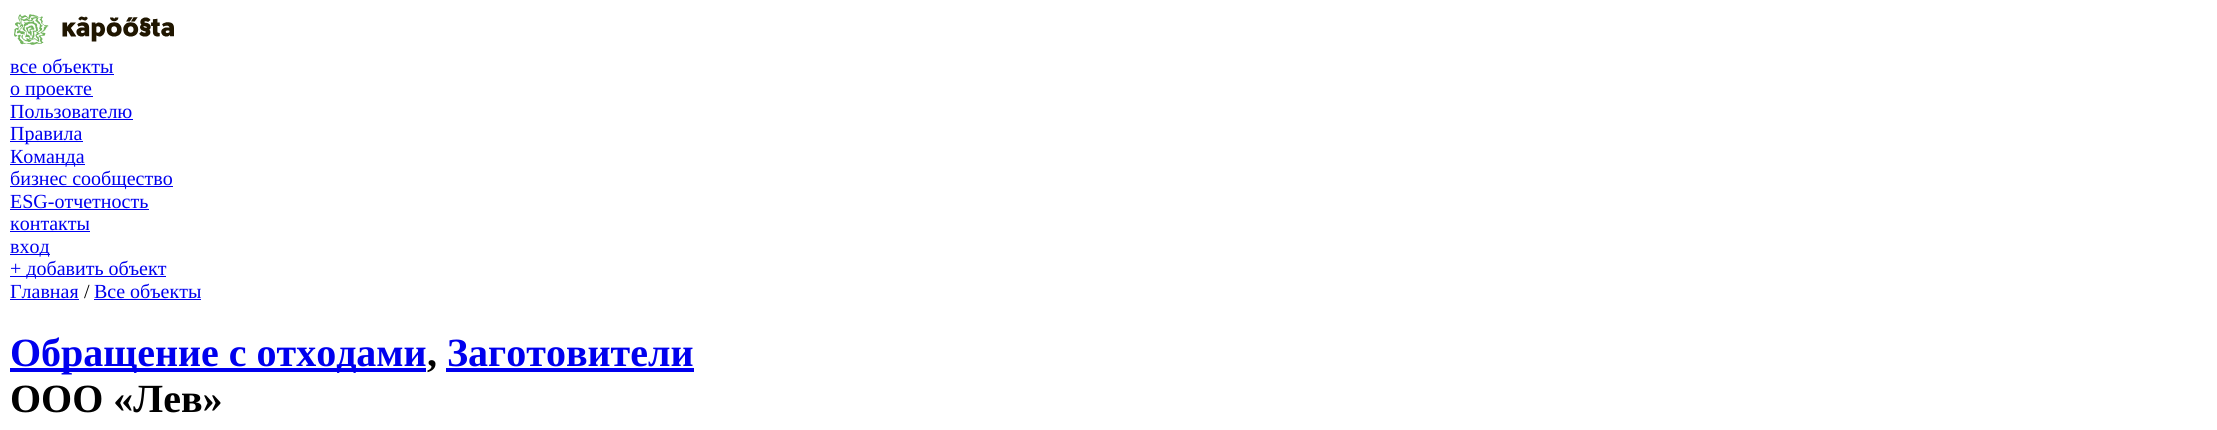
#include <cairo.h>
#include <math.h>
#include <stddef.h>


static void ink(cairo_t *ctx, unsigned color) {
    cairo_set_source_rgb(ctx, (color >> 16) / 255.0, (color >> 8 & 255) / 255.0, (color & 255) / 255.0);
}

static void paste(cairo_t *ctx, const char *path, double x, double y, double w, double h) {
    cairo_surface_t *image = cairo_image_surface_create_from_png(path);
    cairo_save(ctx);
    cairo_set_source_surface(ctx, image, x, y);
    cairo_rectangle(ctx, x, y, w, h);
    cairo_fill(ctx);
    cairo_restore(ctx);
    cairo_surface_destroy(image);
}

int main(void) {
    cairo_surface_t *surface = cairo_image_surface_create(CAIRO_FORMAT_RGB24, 2217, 430);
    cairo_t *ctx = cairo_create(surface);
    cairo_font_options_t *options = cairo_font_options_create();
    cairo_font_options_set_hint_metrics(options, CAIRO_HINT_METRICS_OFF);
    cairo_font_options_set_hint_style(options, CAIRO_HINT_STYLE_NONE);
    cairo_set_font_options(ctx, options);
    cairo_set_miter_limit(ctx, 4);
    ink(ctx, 0xFFFFFF);
    cairo_paint(ctx);
    paste(ctx, "media/1.png", 14, 14, 160, 31);
    cairo_select_font_face(ctx, "Liberation Serif", CAIRO_FONT_SLANT_NORMAL, CAIRO_FONT_WEIGHT_NORMAL);
    cairo_set_font_size(ctx, 20);
    ink(ctx, 0x0000EE);
    cairo_move_to(ctx, 10, 73);
    cairo_show_text(ctx, "все объекты");
    cairo_rectangle(ctx, 10, 74, 104, 1);
    cairo_fill(ctx);
    cairo_rectangle(ctx, 10, 96, 83, 1);
    cairo_fill(ctx);
    cairo_move_to(ctx, 10, 95);
    cairo_show_text(ctx, "о проекте");
    cairo_move_to(ctx, 10, 118);
    cairo_show_text(ctx, "Пользователю");
    cairo_rectangle(ctx, 10, 119, 123, 1);
    cairo_fill(ctx);
    cairo_rectangle(ctx, 10, 141, 73, 1);
    cairo_fill(ctx);
    cairo_move_to(ctx, 10, 140);
    cairo_show_text(ctx, "Правила");
    cairo_rectangle(ctx, 10, 164, 75, 1);
    cairo_fill(ctx);
    cairo_move_to(ctx, 10, 163);
    cairo_show_text(ctx, "Команда");
    cairo_rectangle(ctx, 10, 186, 163, 1);
    cairo_fill(ctx);
    cairo_move_to(ctx, 10, 185);
    cairo_show_text(ctx, "бизнес сообщество");
    cairo_move_to(ctx, 10, 208);
    cairo_show_text(ctx, "ESG-отчетность");
    cairo_rectangle(ctx, 10, 209, 139, 1);
    cairo_fill(ctx);
    cairo_move_to(ctx, 10, 230);
    cairo_show_text(ctx, "контакты");
    cairo_rectangle(ctx, 10, 231, 80, 1);
    cairo_fill(ctx);
    cairo_rectangle(ctx, 10, 254, 40, 1);
    cairo_fill(ctx);
    cairo_move_to(ctx, 10, 253);
    cairo_show_text(ctx, "вход");
    cairo_rectangle(ctx, 10, 276, 156, 1);
    cairo_fill(ctx);
    cairo_move_to(ctx, 10, 275);
    cairo_show_text(ctx, "+ добавить объект");
    cairo_move_to(ctx, 10, 298);
    cairo_show_text(ctx, "Главная");
    cairo_rectangle(ctx, 10, 299, 69, 1);
    cairo_fill(ctx);
    ink(ctx, 0x000000);
    cairo_move_to(ctx, 84, 298);
    cairo_show_text(ctx, "/");
    ink(ctx, 0x0000EE);
    cairo_move_to(ctx, 94, 298);
    cairo_show_text(ctx, "Все объекты");
    cairo_rectangle(ctx, 94, 299, 107, 1);
    cairo_fill(ctx);
    cairo_rectangle(ctx, 10, 368, 416, 4);
    cairo_fill(ctx);
    cairo_select_font_face(ctx, "Liberation Serif", CAIRO_FONT_SLANT_NORMAL, CAIRO_FONT_WEIGHT_BOLD);
    cairo_set_font_size(ctx, 40);
    cairo_move_to(ctx, 10, 366);
    cairo_show_text(ctx, "Обращение с отходами");
    ink(ctx, 0x000000);
    cairo_move_to(ctx, 427, 366);
    cairo_show_text(ctx, ",");
    ink(ctx, 0x0000EE);
    cairo_move_to(ctx, 447, 366);
    cairo_show_text(ctx, "Заготовители");
    cairo_rectangle(ctx, 446, 368, 248, 4);
    cairo_fill(ctx);
    ink(ctx, 0x000000);
    cairo_move_to(ctx, 10, 412);
    cairo_show_text(ctx, "ООО «Лев»");
    cairo_surface_write_to_png(surface, "image.png");
    cairo_font_options_destroy(options);
    cairo_destroy(ctx);
    cairo_surface_destroy(surface);
    return 0;
}
